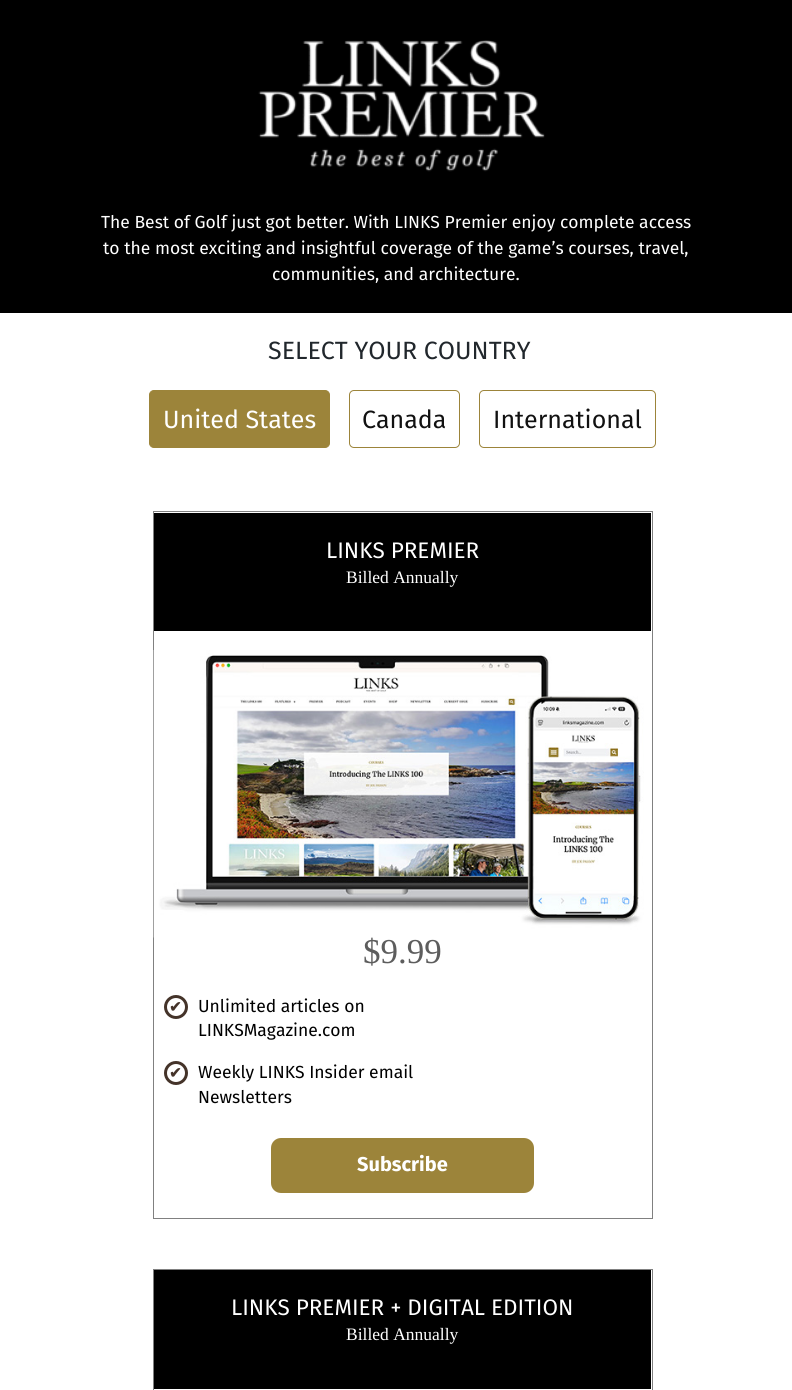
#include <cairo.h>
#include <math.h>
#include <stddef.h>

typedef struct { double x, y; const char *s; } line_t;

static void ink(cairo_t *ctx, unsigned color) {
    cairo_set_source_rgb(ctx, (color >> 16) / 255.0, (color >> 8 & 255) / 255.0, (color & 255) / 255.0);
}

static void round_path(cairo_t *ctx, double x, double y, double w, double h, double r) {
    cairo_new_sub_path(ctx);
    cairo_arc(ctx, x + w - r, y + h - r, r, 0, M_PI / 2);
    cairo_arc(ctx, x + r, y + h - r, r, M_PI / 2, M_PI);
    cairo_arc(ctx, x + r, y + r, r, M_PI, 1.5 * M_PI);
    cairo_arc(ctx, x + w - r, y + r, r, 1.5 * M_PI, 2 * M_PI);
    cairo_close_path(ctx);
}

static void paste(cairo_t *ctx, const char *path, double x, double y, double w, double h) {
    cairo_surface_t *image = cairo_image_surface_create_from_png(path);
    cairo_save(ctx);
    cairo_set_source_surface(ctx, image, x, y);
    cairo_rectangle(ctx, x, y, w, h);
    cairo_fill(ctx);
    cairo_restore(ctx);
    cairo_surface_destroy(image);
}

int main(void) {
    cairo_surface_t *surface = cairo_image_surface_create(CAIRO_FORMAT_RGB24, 792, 1390);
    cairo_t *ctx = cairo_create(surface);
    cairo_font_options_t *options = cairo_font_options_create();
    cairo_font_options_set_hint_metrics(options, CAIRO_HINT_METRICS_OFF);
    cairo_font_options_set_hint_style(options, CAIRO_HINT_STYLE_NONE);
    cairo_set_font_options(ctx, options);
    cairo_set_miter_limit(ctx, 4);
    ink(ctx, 0xFFFFFF);
    cairo_paint(ctx);
    ink(ctx, 0x000000);
    cairo_rectangle(ctx, 0, 0, 792, 313);
    cairo_fill(ctx);
    paste(ctx, "media/1.png", 258, 40, 287, 132);
    cairo_select_font_face(ctx, "Fira Sans", CAIRO_FONT_SLANT_NORMAL, CAIRO_FONT_WEIGHT_NORMAL);
    cairo_set_font_size(ctx, 17.5);
    ink(ctx, 0xFFFFFF);
    {
        static const line_t items[] = {
            {101, 228, "The Best of Golf just got better. With LINKS Premier enjoy complete access"},
            {103, 254, "to the most exciting and insightful coverage of the game’s courses, travel,"},
            {272, 280, "communities, and architecture."},
        };
        for (size_t i = 0; i < sizeof items / sizeof *items; i++) {
            cairo_move_to(ctx, items[i].x, items[i].y);
            cairo_show_text(ctx, items[i].s);
        }
    }
    cairo_set_font_size(ctx, 25);
    ink(ctx, 0x21272C);
    cairo_move_to(ctx, 268, 359);
    cairo_show_text(ctx, "SELECT YOUR COUNTRY");
    ink(ctx, 0x9C843A);
    round_path(ctx, 149.5, 390.5, 180, 57, 4.5);
    cairo_fill_preserve(ctx);
    cairo_set_line_width(ctx, 1);
    cairo_stroke(ctx);
    ink(ctx, 0xFFFFFF);
    cairo_move_to(ctx, 163, 428);
    cairo_show_text(ctx, "United States");
    round_path(ctx, 349.5, 390.5, 110, 57, 4.5);
    ink(ctx, 0x9C843A);
    cairo_stroke(ctx);
    ink(ctx, 0x111111);
    cairo_move_to(ctx, 362, 428);
    cairo_show_text(ctx, "Canada");
    round_path(ctx, 479.5, 390.5, 176, 57, 4.5);
    ink(ctx, 0x9C843A);
    cairo_stroke(ctx);
    ink(ctx, 0x111111);
    cairo_move_to(ctx, 493, 428);
    cairo_show_text(ctx, "International");
    cairo_rectangle(ctx, 153.5, 511.5, 499, 707);
    ink(ctx, 0x808080);
    cairo_stroke(ctx);
    ink(ctx, 0x000000);
    cairo_rectangle(ctx, 154, 513, 497, 118);
    cairo_fill(ctx);
    cairo_set_font_size(ctx, 22.5);
    ink(ctx, 0xFFFFFF);
    cairo_move_to(ctx, 326, 558);
    cairo_show_text(ctx, "LINKS PREMIER");
    cairo_select_font_face(ctx, "Liberation Serif", CAIRO_FONT_SLANT_NORMAL, CAIRO_FONT_WEIGHT_NORMAL);
    cairo_set_font_size(ctx, 17.5);
    cairo_move_to(ctx, 346, 583);
    cairo_show_text(ctx, "Billed Annually");
    paste(ctx, "media/2.png", 153, 650, 491, 288);
    cairo_set_font_size(ctx, 35);
    ink(ctx, 0x5D5D5D);
    cairo_move_to(ctx, 363, 963);
    cairo_show_text(ctx, "$9.99");
    cairo_new_path(ctx);
    cairo_arc(ctx, 176, 1007, 10.5, 0, 2 * M_PI);
    ink(ctx, 0x443329);
    cairo_set_line_width(ctx, 3);
    cairo_stroke(ctx);
    cairo_select_font_face(ctx, "DejaVu Sans", CAIRO_FONT_SLANT_NORMAL, CAIRO_FONT_WEIGHT_BOLD);
    cairo_set_font_size(ctx, 15);
    cairo_move_to(ctx, 169, 1012);
    cairo_show_text(ctx, "✔");
    cairo_select_font_face(ctx, "Fira Sans", CAIRO_FONT_SLANT_NORMAL, CAIRO_FONT_WEIGHT_NORMAL);
    cairo_set_font_size(ctx, 17.5);
    ink(ctx, 0x000000);
    cairo_move_to(ctx, 198, 1012);
    cairo_show_text(ctx, "Unlimited articles on");
    cairo_move_to(ctx, 198, 1036);
    cairo_show_text(ctx, "LINKSMagazine.com");
    cairo_new_path(ctx);
    cairo_arc(ctx, 176, 1073, 10.5, 0, 2 * M_PI);
    ink(ctx, 0x443329);
    cairo_stroke(ctx);
    cairo_select_font_face(ctx, "DejaVu Sans", CAIRO_FONT_SLANT_NORMAL, CAIRO_FONT_WEIGHT_BOLD);
    cairo_set_font_size(ctx, 15);
    cairo_move_to(ctx, 169, 1078);
    cairo_show_text(ctx, "✔");
    cairo_select_font_face(ctx, "Fira Sans", CAIRO_FONT_SLANT_NORMAL, CAIRO_FONT_WEIGHT_NORMAL);
    cairo_set_font_size(ctx, 17.5);
    ink(ctx, 0x000000);
    cairo_move_to(ctx, 198, 1078);
    cairo_show_text(ctx, "Weekly LINKS Insider email");
    cairo_move_to(ctx, 198, 1103);
    cairo_show_text(ctx, "Newsletters");
    ink(ctx, 0x9C843A);
    round_path(ctx, 271, 1138, 263, 55, 10);
    cairo_fill(ctx);
    cairo_select_font_face(ctx, "Fira Sans", CAIRO_FONT_SLANT_NORMAL, CAIRO_FONT_WEIGHT_BOLD);
    cairo_set_font_size(ctx, 20);
    ink(ctx, 0xFFFFFF);
    cairo_move_to(ctx, 357, 1171);
    cairo_show_text(ctx, "Subscribe");
    cairo_rectangle(ctx, 153.5, 1269.5, 499, 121);
    ink(ctx, 0x808080);
    cairo_set_line_width(ctx, 1);
    cairo_stroke(ctx);
    ink(ctx, 0x000000);
    cairo_rectangle(ctx, 154, 1270, 497, 119);
    cairo_fill(ctx);
    cairo_select_font_face(ctx, "Fira Sans", CAIRO_FONT_SLANT_NORMAL, CAIRO_FONT_WEIGHT_NORMAL);
    cairo_set_font_size(ctx, 22.5);
    ink(ctx, 0xFFFFFF);
    cairo_move_to(ctx, 231, 1315);
    cairo_show_text(ctx, "LINKS PREMIER + DIGITAL EDITION");
    cairo_select_font_face(ctx, "Liberation Serif", CAIRO_FONT_SLANT_NORMAL, CAIRO_FONT_WEIGHT_NORMAL);
    cairo_set_font_size(ctx, 17.5);
    cairo_move_to(ctx, 346, 1340);
    cairo_show_text(ctx, "Billed Annually");
    cairo_surface_write_to_png(surface, "image.png");
    cairo_font_options_destroy(options);
    cairo_destroy(ctx);
    cairo_surface_destroy(surface);
    return 0;
}
